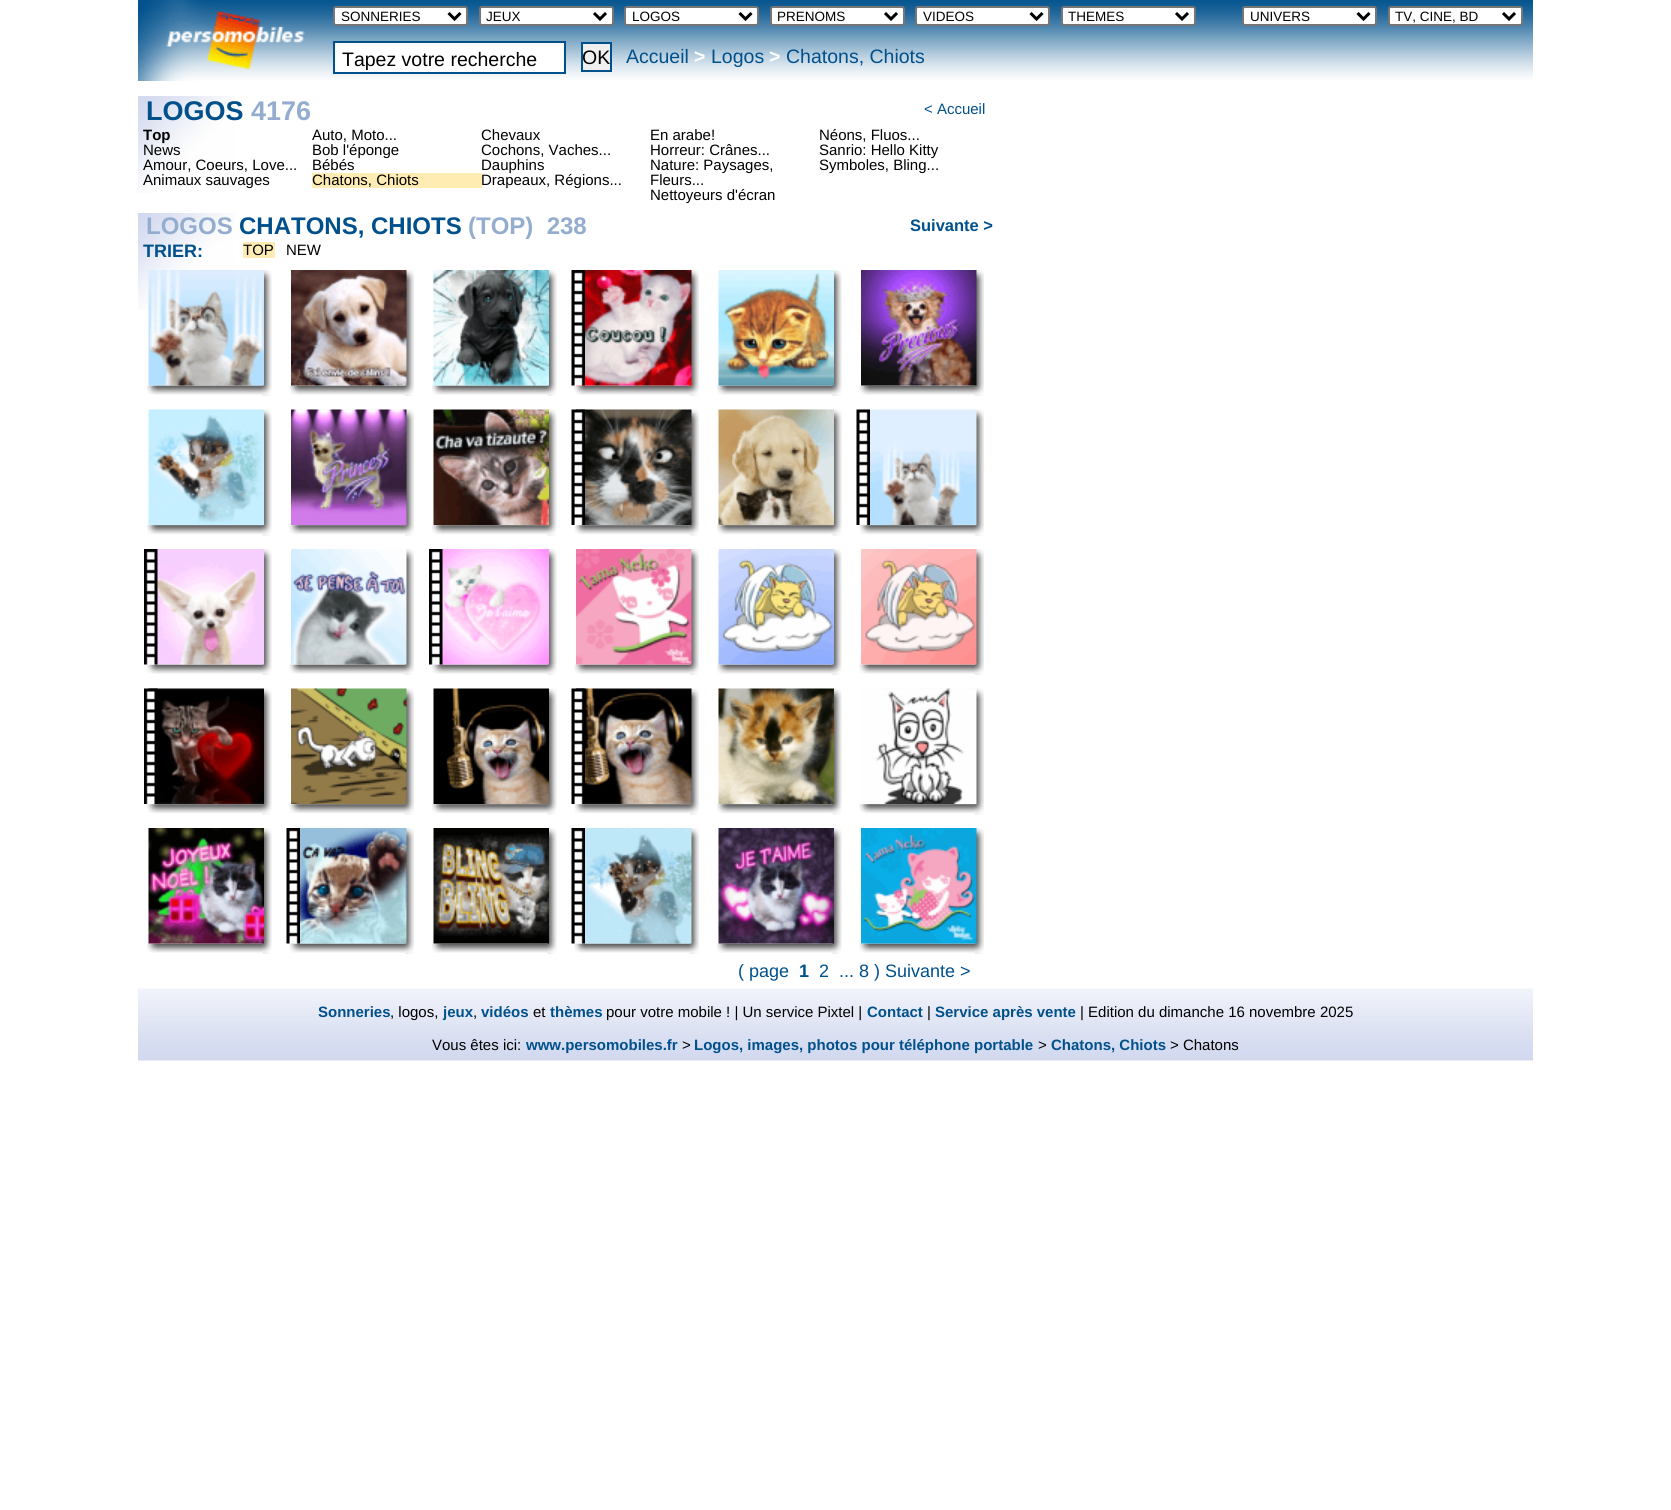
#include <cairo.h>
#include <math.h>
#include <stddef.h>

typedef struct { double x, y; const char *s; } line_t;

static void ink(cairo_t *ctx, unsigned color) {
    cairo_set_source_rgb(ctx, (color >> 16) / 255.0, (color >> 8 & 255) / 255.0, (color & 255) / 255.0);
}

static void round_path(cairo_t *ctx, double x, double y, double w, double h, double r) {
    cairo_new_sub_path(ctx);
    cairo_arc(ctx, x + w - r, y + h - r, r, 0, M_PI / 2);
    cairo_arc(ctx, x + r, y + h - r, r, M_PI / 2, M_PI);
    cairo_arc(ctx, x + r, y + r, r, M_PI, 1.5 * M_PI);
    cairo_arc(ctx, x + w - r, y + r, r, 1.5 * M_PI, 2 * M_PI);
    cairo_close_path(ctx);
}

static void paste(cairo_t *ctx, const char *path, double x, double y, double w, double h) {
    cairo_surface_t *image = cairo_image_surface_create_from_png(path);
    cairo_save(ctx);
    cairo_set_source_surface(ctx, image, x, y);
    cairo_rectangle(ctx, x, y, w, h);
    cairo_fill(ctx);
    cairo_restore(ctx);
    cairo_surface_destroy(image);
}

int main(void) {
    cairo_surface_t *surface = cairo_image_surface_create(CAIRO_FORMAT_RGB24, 1671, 1510);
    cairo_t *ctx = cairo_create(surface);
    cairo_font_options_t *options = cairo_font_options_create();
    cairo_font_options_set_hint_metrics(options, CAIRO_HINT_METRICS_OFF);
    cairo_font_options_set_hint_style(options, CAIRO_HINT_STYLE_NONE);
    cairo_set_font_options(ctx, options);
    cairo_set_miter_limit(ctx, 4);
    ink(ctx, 0xFFFFFF);
    cairo_paint(ctx);
    paste(ctx, "media/1.png", 138, 0, 1395, 81);
    ink(ctx, 0xFFFFFF);
    round_path(ctx, 334, 7, 133, 18, 2);
    cairo_fill_preserve(ctx);
    ink(ctx, 0x767676);
    cairo_stroke(ctx);
    cairo_new_path(ctx);
    cairo_move_to(ctx, 448.5, 13);
    cairo_line_to(ctx, 454.5, 19);
    cairo_line_to(ctx, 460.5, 13);
    ink(ctx, 0x000000);
    cairo_set_line_width(ctx, 3);
    cairo_stroke(ctx);
    cairo_select_font_face(ctx, "Liberation Sans", CAIRO_FONT_SLANT_NORMAL, CAIRO_FONT_WEIGHT_NORMAL);
    cairo_set_font_size(ctx, 13.5);
    cairo_move_to(ctx, 341, 21);
    cairo_show_text(ctx, "SONNERIES");
    ink(ctx, 0xFFFFFF);
    round_path(ctx, 480, 7, 133, 18, 2);
    cairo_fill_preserve(ctx);
    ink(ctx, 0x767676);
    cairo_set_line_width(ctx, 2);
    cairo_stroke(ctx);
    cairo_new_path(ctx);
    cairo_move_to(ctx, 594, 13);
    cairo_line_to(ctx, 600, 19);
    cairo_line_to(ctx, 606, 13);
    ink(ctx, 0x000000);
    cairo_set_line_width(ctx, 3);
    cairo_stroke(ctx);
    cairo_move_to(ctx, 486, 21);
    cairo_show_text(ctx, "JEUX");
    ink(ctx, 0xFFFFFF);
    round_path(ctx, 625, 7, 133, 18, 2);
    cairo_fill_preserve(ctx);
    ink(ctx, 0x767676);
    cairo_set_line_width(ctx, 2);
    cairo_stroke(ctx);
    cairo_new_path(ctx);
    cairo_move_to(ctx, 739.5, 13);
    cairo_line_to(ctx, 745.5, 19);
    cairo_line_to(ctx, 751.5, 13);
    ink(ctx, 0x000000);
    cairo_set_line_width(ctx, 3);
    cairo_stroke(ctx);
    cairo_move_to(ctx, 632, 21);
    cairo_show_text(ctx, "LOGOS");
    ink(ctx, 0xFFFFFF);
    round_path(ctx, 771, 7, 133, 18, 2);
    cairo_fill_preserve(ctx);
    ink(ctx, 0x767676);
    cairo_set_line_width(ctx, 2);
    cairo_stroke(ctx);
    cairo_new_path(ctx);
    cairo_move_to(ctx, 885, 13);
    cairo_line_to(ctx, 891, 19);
    cairo_line_to(ctx, 897, 13);
    ink(ctx, 0x000000);
    cairo_set_line_width(ctx, 3);
    cairo_stroke(ctx);
    cairo_move_to(ctx, 777, 21);
    cairo_show_text(ctx, "PRENOMS");
    ink(ctx, 0xFFFFFF);
    round_path(ctx, 916, 7, 133, 18, 2);
    cairo_fill_preserve(ctx);
    ink(ctx, 0x767676);
    cairo_set_line_width(ctx, 2);
    cairo_stroke(ctx);
    cairo_new_path(ctx);
    cairo_move_to(ctx, 1030.5, 13);
    cairo_line_to(ctx, 1036.5, 19);
    cairo_line_to(ctx, 1042.5, 13);
    ink(ctx, 0x000000);
    cairo_set_line_width(ctx, 3);
    cairo_stroke(ctx);
    cairo_move_to(ctx, 923, 21);
    cairo_show_text(ctx, "VIDEOS");
    ink(ctx, 0xFFFFFF);
    round_path(ctx, 1062, 7, 133, 18, 2);
    cairo_fill_preserve(ctx);
    ink(ctx, 0x767676);
    cairo_set_line_width(ctx, 2);
    cairo_stroke(ctx);
    cairo_new_path(ctx);
    cairo_move_to(ctx, 1176, 13);
    cairo_line_to(ctx, 1182, 19);
    cairo_line_to(ctx, 1188, 13);
    ink(ctx, 0x000000);
    cairo_set_line_width(ctx, 3);
    cairo_stroke(ctx);
    cairo_move_to(ctx, 1068, 21);
    cairo_show_text(ctx, "THEMES");
    ink(ctx, 0xFFFFFF);
    round_path(ctx, 1243, 7, 133, 18, 2);
    cairo_fill_preserve(ctx);
    ink(ctx, 0x767676);
    cairo_set_line_width(ctx, 2);
    cairo_stroke(ctx);
    cairo_new_path(ctx);
    cairo_move_to(ctx, 1357.5, 13);
    cairo_line_to(ctx, 1363.5, 19);
    cairo_line_to(ctx, 1369.5, 13);
    ink(ctx, 0x000000);
    cairo_set_line_width(ctx, 3);
    cairo_stroke(ctx);
    cairo_move_to(ctx, 1250, 21);
    cairo_show_text(ctx, "UNIVERS");
    ink(ctx, 0xFFFFFF);
    round_path(ctx, 1389, 7, 133, 18, 2);
    cairo_fill_preserve(ctx);
    ink(ctx, 0x767676);
    cairo_set_line_width(ctx, 2);
    cairo_stroke(ctx);
    cairo_new_path(ctx);
    cairo_move_to(ctx, 1503, 13);
    cairo_line_to(ctx, 1509, 19);
    cairo_line_to(ctx, 1515, 13);
    ink(ctx, 0x000000);
    cairo_set_line_width(ctx, 3);
    cairo_stroke(ctx);
    cairo_move_to(ctx, 1395, 21);
    cairo_show_text(ctx, "TV, CINE, BD");
    ink(ctx, 0xFFFFFF);
    cairo_rectangle(ctx, 334, 42, 231, 31);
    cairo_fill_preserve(ctx);
    ink(ctx, 0x00508C);
    cairo_set_line_width(ctx, 2);
    cairo_stroke(ctx);
    cairo_set_font_size(ctx, 19.5);
    ink(ctx, 0x000000);
    cairo_move_to(ctx, 342, 66);
    cairo_show_text(ctx, "Tapez votre recherche");
    ink(ctx, 0xEFEFEF);
    cairo_rectangle(ctx, 582, 43, 29, 28);
    cairo_fill_preserve(ctx);
    ink(ctx, 0x00508C);
    cairo_stroke(ctx);
    ink(ctx, 0x000000);
    cairo_move_to(ctx, 582, 64);
    cairo_show_text(ctx, "OK");
    ink(ctx, 0x00508C);
    cairo_move_to(ctx, 626, 63);
    cairo_show_text(ctx, "Accueil");
    cairo_select_font_face(ctx, "Liberation Sans", CAIRO_FONT_SLANT_NORMAL, CAIRO_FONT_WEIGHT_BOLD);
    ink(ctx, 0xFFFFFF);
    cairo_move_to(ctx, 694, 63);
    cairo_show_text(ctx, ">");
    cairo_select_font_face(ctx, "Liberation Sans", CAIRO_FONT_SLANT_NORMAL, CAIRO_FONT_WEIGHT_NORMAL);
    ink(ctx, 0x00508C);
    cairo_move_to(ctx, 711, 63);
    cairo_show_text(ctx, "Logos");
    cairo_select_font_face(ctx, "Liberation Sans", CAIRO_FONT_SLANT_NORMAL, CAIRO_FONT_WEIGHT_BOLD);
    ink(ctx, 0xFFFFFF);
    cairo_move_to(ctx, 769, 63);
    cairo_show_text(ctx, ">");
    cairo_select_font_face(ctx, "Liberation Sans", CAIRO_FONT_SLANT_NORMAL, CAIRO_FONT_WEIGHT_NORMAL);
    ink(ctx, 0x00508C);
    cairo_move_to(ctx, 786, 63);
    cairo_show_text(ctx, "Chatons, Chiots");
    paste(ctx, "media/2.png", 138, 96, 97, 97);
    cairo_select_font_face(ctx, "Liberation Sans", CAIRO_FONT_SLANT_NORMAL, CAIRO_FONT_WEIGHT_BOLD);
    cairo_set_font_size(ctx, 27);
    cairo_move_to(ctx, 146, 120);
    cairo_show_text(ctx, "LOGOS");
    ink(ctx, 0x94ADCE);
    cairo_move_to(ctx, 251, 120);
    cairo_show_text(ctx, "4176");
    cairo_select_font_face(ctx, "Liberation Sans", CAIRO_FONT_SLANT_NORMAL, CAIRO_FONT_WEIGHT_NORMAL);
    cairo_set_font_size(ctx, 15);
    ink(ctx, 0x00508C);
    cairo_move_to(ctx, 924, 114);
    cairo_show_text(ctx, "< Accueil");
    cairo_select_font_face(ctx, "Liberation Sans", CAIRO_FONT_SLANT_NORMAL, CAIRO_FONT_WEIGHT_BOLD);
    ink(ctx, 0x000000);
    cairo_move_to(ctx, 143, 140);
    cairo_show_text(ctx, "Top");
    cairo_select_font_face(ctx, "Liberation Sans", CAIRO_FONT_SLANT_NORMAL, CAIRO_FONT_WEIGHT_NORMAL);
    {
        static const line_t items[] = {
            {143, 155, "News"},
            {143, 170, "Amour, Coeurs, Love..."},
            {143, 185, "Animaux sauvages"},
            {312, 140, "Auto, Moto..."},
            {312, 155, "Bob l'éponge"},
            {312, 170, "Bébés"},
        };
        for (size_t i = 0; i < sizeof items / sizeof *items; i++) {
            cairo_move_to(ctx, items[i].x, items[i].y);
            cairo_show_text(ctx, items[i].s);
        }
    }
    ink(ctx, 0xFFECB2);
    cairo_rectangle(ctx, 312, 173, 170, 15);
    cairo_fill(ctx);
    ink(ctx, 0x000000);
    {
        static const line_t items[] = {
            {312, 185, "Chatons, Chiots"},
            {481, 140, "Chevaux"},
            {481, 155, "Cochons, Vaches..."},
            {481, 170, "Dauphins"},
            {481, 185, "Drapeaux, Régions..."},
            {650, 140, "En arabe!"},
            {650, 155, "Horreur: Crânes..."},
            {650, 170, "Nature: Paysages,"},
            {650, 185, "Fleurs..."},
            {650, 200, "Nettoyeurs d'écran"},
            {819, 140, "Néons, Fluos..."},
            {819, 155, "Sanrio: Hello Kitty"},
            {819, 170, "Symboles, Bling..."},
        };
        for (size_t i = 0; i < sizeof items / sizeof *items; i++) {
            cairo_move_to(ctx, items[i].x, items[i].y);
            cairo_show_text(ctx, items[i].s);
        }
    }
    paste(ctx, "media/2.png", 138, 213, 97, 97);
    cairo_select_font_face(ctx, "Liberation Sans", CAIRO_FONT_SLANT_NORMAL, CAIRO_FONT_WEIGHT_BOLD);
    cairo_set_font_size(ctx, 24);
    ink(ctx, 0x94ADCE);
    cairo_move_to(ctx, 146, 234);
    cairo_show_text(ctx, "LOGOS");
    ink(ctx, 0x00508C);
    cairo_move_to(ctx, 239, 234);
    cairo_show_text(ctx, "CHATONS, CHIOTS");
    ink(ctx, 0x94ADCE);
    cairo_move_to(ctx, 468, 234);
    cairo_show_text(ctx, "(TOP)  238");
    cairo_set_font_size(ctx, 16.5);
    ink(ctx, 0x00508C);
    cairo_move_to(ctx, 910, 231);
    cairo_show_text(ctx, "Suivante >");
    cairo_set_font_size(ctx, 18);
    cairo_move_to(ctx, 143, 257);
    cairo_show_text(ctx, "TRIER:");
    ink(ctx, 0xFFECB2);
    cairo_rectangle(ctx, 243, 242, 32, 16);
    cairo_fill(ctx);
    cairo_select_font_face(ctx, "Liberation Sans", CAIRO_FONT_SLANT_NORMAL, CAIRO_FONT_WEIGHT_NORMAL);
    cairo_set_font_size(ctx, 15);
    ink(ctx, 0x000000);
    cairo_move_to(ctx, 243, 255);
    cairo_show_text(ctx, "TOP");
    cairo_move_to(ctx, 286, 255);
    cairo_show_text(ctx, "NEW");
    paste(ctx, "media/3.png", 147, 270, 125, 126);
    paste(ctx, "media/4.png", 148, 270, 116, 116);
    paste(ctx, "media/5.png", 289, 270, 125, 126);
    paste(ctx, "media/6.png", 291, 270, 116, 116);
    paste(ctx, "media/7.png", 432, 270, 125, 126);
    paste(ctx, "media/8.png", 433, 270, 116, 116);
    paste(ctx, "media/10.png", 574, 270, 125, 126);
    paste(ctx, "media/11.png", 576, 270, 116, 116);
    paste(ctx, "media/9.png", 571, 270, 14, 116);
    paste(ctx, "media/12.png", 717, 270, 125, 126);
    paste(ctx, "media/13.png", 718, 270, 116, 116);
    paste(ctx, "media/14.png", 859, 270, 125, 126);
    paste(ctx, "media/15.png", 861, 270, 116, 116);
    paste(ctx, "media/16.png", 147, 409, 125, 127);
    paste(ctx, "media/17.png", 148, 409, 116, 116);
    paste(ctx, "media/18.png", 289, 409, 125, 127);
    paste(ctx, "media/19.png", 291, 409, 116, 116);
    paste(ctx, "media/16.png", 432, 409, 125, 127);
    paste(ctx, "media/20.png", 433, 409, 116, 116);
    paste(ctx, "media/22.png", 574, 409, 125, 127);
    paste(ctx, "media/23.png", 576, 409, 116, 116);
    paste(ctx, "media/21.png", 571, 409, 14, 116);
    paste(ctx, "media/16.png", 717, 409, 125, 127);
    paste(ctx, "media/24.png", 718, 409, 116, 116);
    paste(ctx, "media/26.png", 859, 409, 125, 127);
    paste(ctx, "media/27.png", 861, 409, 116, 116);
    paste(ctx, "media/25.png", 856, 409, 14, 116);
    paste(ctx, "media/29.png", 147, 549, 125, 126);
    paste(ctx, "media/30.png", 148, 549, 116, 116);
    paste(ctx, "media/28.png", 144, 549, 14, 116);
    paste(ctx, "media/31.png", 289, 549, 125, 126);
    paste(ctx, "media/32.png", 291, 549, 116, 116);
    paste(ctx, "media/34.png", 432, 549, 125, 126);
    paste(ctx, "media/35.png", 433, 549, 116, 116);
    paste(ctx, "media/33.png", 429, 549, 14, 116);
    paste(ctx, "media/36.png", 574, 549, 125, 126);
    paste(ctx, "media/37.png", 576, 549, 116, 116);
    paste(ctx, "media/38.png", 717, 549, 125, 126);
    paste(ctx, "media/39.png", 718, 549, 116, 116);
    paste(ctx, "media/14.png", 859, 549, 125, 126);
    paste(ctx, "media/40.png", 861, 549, 116, 116);
    paste(ctx, "media/42.png", 147, 688, 125, 127);
    paste(ctx, "media/43.png", 148, 688, 116, 116);
    paste(ctx, "media/41.png", 144, 688, 14, 116);
    paste(ctx, "media/44.png", 289, 688, 125, 127);
    paste(ctx, "media/45.png", 291, 688, 116, 116);
    paste(ctx, "media/46.png", 432, 688, 125, 127);
    paste(ctx, "media/47.png", 433, 688, 116, 116);
    paste(ctx, "media/49.png", 574, 688, 125, 127);
    paste(ctx, "media/50.png", 576, 688, 116, 116);
    paste(ctx, "media/48.png", 571, 688, 14, 116);
    paste(ctx, "media/51.png", 717, 688, 125, 127);
    paste(ctx, "media/52.png", 718, 688, 116, 116);
    paste(ctx, "media/53.png", 859, 688, 125, 127);
    paste(ctx, "media/54.png", 861, 688, 116, 116);
    paste(ctx, "media/55.png", 147, 828, 125, 126);
    paste(ctx, "media/56.png", 148, 828, 116, 116);
    paste(ctx, "media/58.png", 289, 828, 125, 126);
    paste(ctx, "media/59.png", 291, 828, 116, 116);
    paste(ctx, "media/57.png", 286, 828, 14, 116);
    paste(ctx, "media/7.png", 432, 828, 125, 126);
    paste(ctx, "media/60.png", 433, 828, 116, 116);
    paste(ctx, "media/62.png", 574, 828, 125, 126);
    paste(ctx, "media/63.png", 576, 828, 116, 116);
    paste(ctx, "media/61.png", 571, 828, 14, 116);
    paste(ctx, "media/12.png", 717, 828, 125, 126);
    paste(ctx, "media/64.png", 718, 828, 116, 116);
    paste(ctx, "media/65.png", 859, 828, 125, 126);
    paste(ctx, "media/66.png", 861, 828, 116, 116);
    cairo_set_font_size(ctx, 18);
    ink(ctx, 0x00508C);
    cairo_move_to(ctx, 738, 977);
    cairo_show_text(ctx, "( page");
    cairo_select_font_face(ctx, "Liberation Sans", CAIRO_FONT_SLANT_NORMAL, CAIRO_FONT_WEIGHT_BOLD);
    cairo_move_to(ctx, 799, 977);
    cairo_show_text(ctx, "1");
    cairo_select_font_face(ctx, "Liberation Sans", CAIRO_FONT_SLANT_NORMAL, CAIRO_FONT_WEIGHT_NORMAL);
    cairo_move_to(ctx, 819, 977);
    cairo_show_text(ctx, "2");
    cairo_move_to(ctx, 839, 977);
    cairo_show_text(ctx, "... 8 ) Suivante >");
    paste(ctx, "media/67.png", 138, 988, 1395, 73);
    cairo_select_font_face(ctx, "Liberation Sans", CAIRO_FONT_SLANT_NORMAL, CAIRO_FONT_WEIGHT_BOLD);
    cairo_set_font_size(ctx, 15);
    cairo_move_to(ctx, 318, 1017);
    cairo_show_text(ctx, "Sonneries");
    cairo_select_font_face(ctx, "Liberation Sans", CAIRO_FONT_SLANT_NORMAL, CAIRO_FONT_WEIGHT_NORMAL);
    ink(ctx, 0x000000);
    cairo_move_to(ctx, 390, 1017);
    cairo_show_text(ctx, ", logos,");
    cairo_select_font_face(ctx, "Liberation Sans", CAIRO_FONT_SLANT_NORMAL, CAIRO_FONT_WEIGHT_BOLD);
    ink(ctx, 0x00508C);
    cairo_move_to(ctx, 443, 1017);
    cairo_show_text(ctx, "jeux");
    cairo_select_font_face(ctx, "Liberation Sans", CAIRO_FONT_SLANT_NORMAL, CAIRO_FONT_WEIGHT_NORMAL);
    ink(ctx, 0x000000);
    cairo_move_to(ctx, 473, 1017);
    cairo_show_text(ctx, ",");
    cairo_select_font_face(ctx, "Liberation Sans", CAIRO_FONT_SLANT_NORMAL, CAIRO_FONT_WEIGHT_BOLD);
    ink(ctx, 0x00508C);
    cairo_move_to(ctx, 481, 1017);
    cairo_show_text(ctx, "vidéos");
    cairo_select_font_face(ctx, "Liberation Sans", CAIRO_FONT_SLANT_NORMAL, CAIRO_FONT_WEIGHT_NORMAL);
    ink(ctx, 0x000000);
    cairo_move_to(ctx, 533, 1017);
    cairo_show_text(ctx, "et");
    cairo_select_font_face(ctx, "Liberation Sans", CAIRO_FONT_SLANT_NORMAL, CAIRO_FONT_WEIGHT_BOLD);
    ink(ctx, 0x00508C);
    cairo_move_to(ctx, 550, 1017);
    cairo_show_text(ctx, "thèmes");
    cairo_select_font_face(ctx, "Liberation Sans", CAIRO_FONT_SLANT_NORMAL, CAIRO_FONT_WEIGHT_NORMAL);
    ink(ctx, 0x000000);
    cairo_move_to(ctx, 606, 1017);
    cairo_show_text(ctx, "pour votre mobile ! | Un service Pixtel |");
    cairo_select_font_face(ctx, "Liberation Sans", CAIRO_FONT_SLANT_NORMAL, CAIRO_FONT_WEIGHT_BOLD);
    ink(ctx, 0x00508C);
    cairo_move_to(ctx, 867, 1017);
    cairo_show_text(ctx, "Contact");
    cairo_select_font_face(ctx, "Liberation Sans", CAIRO_FONT_SLANT_NORMAL, CAIRO_FONT_WEIGHT_NORMAL);
    ink(ctx, 0x000000);
    cairo_move_to(ctx, 927, 1017);
    cairo_show_text(ctx, "|");
    cairo_select_font_face(ctx, "Liberation Sans", CAIRO_FONT_SLANT_NORMAL, CAIRO_FONT_WEIGHT_BOLD);
    ink(ctx, 0x00508C);
    cairo_move_to(ctx, 935, 1017);
    cairo_show_text(ctx, "Service après vente");
    cairo_select_font_face(ctx, "Liberation Sans", CAIRO_FONT_SLANT_NORMAL, CAIRO_FONT_WEIGHT_NORMAL);
    ink(ctx, 0x000000);
    cairo_move_to(ctx, 1080, 1017);
    cairo_show_text(ctx, "| Edition du dimanche 16 novembre 2025");
    cairo_move_to(ctx, 432, 1050);
    cairo_show_text(ctx, "Vous êtes ici:");
    cairo_select_font_face(ctx, "Liberation Sans", CAIRO_FONT_SLANT_NORMAL, CAIRO_FONT_WEIGHT_BOLD);
    ink(ctx, 0x00508C);
    cairo_move_to(ctx, 526, 1050);
    cairo_show_text(ctx, "www.persomobiles.fr");
    cairo_select_font_face(ctx, "Liberation Sans", CAIRO_FONT_SLANT_NORMAL, CAIRO_FONT_WEIGHT_NORMAL);
    ink(ctx, 0x000000);
    cairo_move_to(ctx, 682, 1050);
    cairo_show_text(ctx, ">");
    cairo_select_font_face(ctx, "Liberation Sans", CAIRO_FONT_SLANT_NORMAL, CAIRO_FONT_WEIGHT_BOLD);
    ink(ctx, 0x00508C);
    cairo_move_to(ctx, 694, 1050);
    cairo_show_text(ctx, "Logos, images, photos pour téléphone portable");
    cairo_select_font_face(ctx, "Liberation Sans", CAIRO_FONT_SLANT_NORMAL, CAIRO_FONT_WEIGHT_NORMAL);
    ink(ctx, 0x000000);
    cairo_move_to(ctx, 1038, 1050);
    cairo_show_text(ctx, ">");
    cairo_select_font_face(ctx, "Liberation Sans", CAIRO_FONT_SLANT_NORMAL, CAIRO_FONT_WEIGHT_BOLD);
    ink(ctx, 0x00508C);
    cairo_move_to(ctx, 1051, 1050);
    cairo_show_text(ctx, "Chatons, Chiots");
    cairo_select_font_face(ctx, "Liberation Sans", CAIRO_FONT_SLANT_NORMAL, CAIRO_FONT_WEIGHT_NORMAL);
    ink(ctx, 0x000000);
    cairo_move_to(ctx, 1170, 1050);
    cairo_show_text(ctx, "> Chatons");
    cairo_surface_write_to_png(surface, "image.png");
    cairo_font_options_destroy(options);
    cairo_destroy(ctx);
    cairo_surface_destroy(surface);
    return 0;
}
